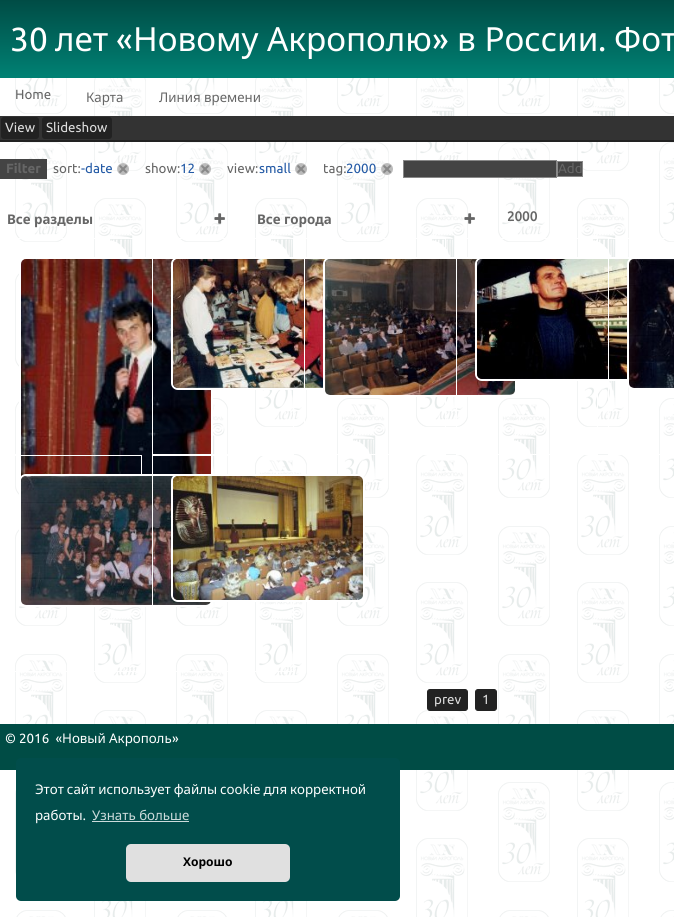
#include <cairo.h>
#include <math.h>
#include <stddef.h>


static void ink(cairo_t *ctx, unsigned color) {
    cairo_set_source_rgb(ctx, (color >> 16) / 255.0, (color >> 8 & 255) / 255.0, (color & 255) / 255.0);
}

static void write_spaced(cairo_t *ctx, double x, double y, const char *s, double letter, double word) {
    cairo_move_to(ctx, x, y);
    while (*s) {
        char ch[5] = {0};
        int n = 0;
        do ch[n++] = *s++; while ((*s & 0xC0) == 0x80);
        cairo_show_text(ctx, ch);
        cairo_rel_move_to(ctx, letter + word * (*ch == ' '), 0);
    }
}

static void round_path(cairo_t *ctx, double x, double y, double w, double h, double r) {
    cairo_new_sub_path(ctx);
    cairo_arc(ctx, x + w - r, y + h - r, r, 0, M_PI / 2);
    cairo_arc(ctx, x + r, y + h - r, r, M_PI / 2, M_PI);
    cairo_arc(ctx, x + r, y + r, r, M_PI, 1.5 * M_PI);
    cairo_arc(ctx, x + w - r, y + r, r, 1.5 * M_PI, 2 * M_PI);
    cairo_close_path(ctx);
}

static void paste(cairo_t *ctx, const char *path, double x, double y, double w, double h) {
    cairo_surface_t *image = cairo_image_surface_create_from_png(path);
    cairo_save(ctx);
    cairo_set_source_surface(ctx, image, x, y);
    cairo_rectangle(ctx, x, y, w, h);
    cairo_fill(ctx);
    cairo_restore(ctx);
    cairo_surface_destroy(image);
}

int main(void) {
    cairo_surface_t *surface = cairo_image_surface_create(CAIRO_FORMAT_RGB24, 674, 917);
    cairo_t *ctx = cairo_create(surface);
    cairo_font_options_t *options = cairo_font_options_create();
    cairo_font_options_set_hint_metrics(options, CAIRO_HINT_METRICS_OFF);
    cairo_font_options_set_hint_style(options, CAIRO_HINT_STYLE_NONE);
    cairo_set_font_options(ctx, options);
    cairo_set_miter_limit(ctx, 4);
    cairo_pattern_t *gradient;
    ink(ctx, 0xFFFFFF);
    cairo_paint(ctx);
    paste(ctx, "media/1.png", 15, 78, 659, 839);
    gradient = cairo_pattern_create_linear(0, 0, 0, 76);
    cairo_pattern_add_color_stop_rgba(gradient, 0, 0, 0.298, 0.271, 1);
    cairo_pattern_add_color_stop_rgba(gradient, 1, 0, 0.502, 0.451, 1);
    cairo_set_source(ctx, gradient);
    cairo_pattern_destroy(gradient);
    cairo_rectangle(ctx, 0, 0, 674, 76);
    cairo_fill(ctx);
    ink(ctx, 0x008073);
    cairo_rectangle(ctx, 0, 76, 674, 2);
    cairo_fill(ctx);
    cairo_select_font_face(ctx, "Ubuntu", CAIRO_FONT_SLANT_NORMAL, CAIRO_FONT_WEIGHT_NORMAL);
    cairo_set_font_size(ctx, 33.25);
    ink(ctx, 0xFFFFFF);
    cairo_move_to(ctx, 10, 51);
    cairo_show_text(ctx, "30");
    cairo_select_font_face(ctx, "Noto Sans", CAIRO_FONT_SLANT_NORMAL, CAIRO_FONT_WEIGHT_NORMAL);
    cairo_move_to(ctx, 55, 51);
    cairo_show_text(ctx, "лет");
    cairo_select_font_face(ctx, "Ubuntu", CAIRO_FONT_SLANT_NORMAL, CAIRO_FONT_WEIGHT_NORMAL);
    cairo_move_to(ctx, 116, 51);
    cairo_show_text(ctx, "«");
    cairo_select_font_face(ctx, "Noto Sans", CAIRO_FONT_SLANT_NORMAL, CAIRO_FONT_WEIGHT_NORMAL);
    cairo_move_to(ctx, 133, 51);
    cairo_show_text(ctx, "Новому Акрополю");
    cairo_select_font_face(ctx, "Ubuntu", CAIRO_FONT_SLANT_NORMAL, CAIRO_FONT_WEIGHT_NORMAL);
    cairo_move_to(ctx, 432, 51);
    cairo_show_text(ctx, "»");
    cairo_select_font_face(ctx, "Noto Sans", CAIRO_FONT_SLANT_NORMAL, CAIRO_FONT_WEIGHT_NORMAL);
    cairo_move_to(ctx, 457, 51);
    cairo_show_text(ctx, "в России");
    cairo_move_to(ctx, 614, 51);
    cairo_show_text(ctx, "Фот");
    cairo_select_font_face(ctx, "Ubuntu", CAIRO_FONT_SLANT_NORMAL, CAIRO_FONT_WEIGHT_NORMAL);
    cairo_move_to(ctx, 598, 51);
    cairo_show_text(ctx, ".");
    cairo_set_font_size(ctx, 13.3);
    ink(ctx, 0x666666);
    cairo_move_to(ctx, 15, 99);
    cairo_show_text(ctx, "Home");
    cairo_select_font_face(ctx, "Noto Sans", CAIRO_FONT_SLANT_NORMAL, CAIRO_FONT_WEIGHT_NORMAL);
    cairo_move_to(ctx, 86, 102);
    cairo_show_text(ctx, "Карта");
    cairo_move_to(ctx, 159, 102);
    cairo_show_text(ctx, "Линия времени");
    ink(ctx, 0x333333);
    cairo_rectangle(ctx, 0, 116, 674, 24);
    cairo_fill(ctx);
    ink(ctx, 0x222222);
    round_path(ctx, 1.5, 117.5, 37, 21, 2.5);
    cairo_fill_preserve(ctx);
    cairo_set_line_width(ctx, 1);
    cairo_stroke(ctx);
    cairo_select_font_face(ctx, "Ubuntu", CAIRO_FONT_SLANT_NORMAL, CAIRO_FONT_WEIGHT_NORMAL);
    ink(ctx, 0xDDDDDD);
    cairo_move_to(ctx, 5, 132);
    cairo_show_text(ctx, "View");
    ink(ctx, 0x222222);
    round_path(ctx, 42.5, 117.5, 69, 21, 2.5);
    cairo_fill_preserve(ctx);
    cairo_stroke(ctx);
    ink(ctx, 0xDDDDDD);
    cairo_move_to(ctx, 46, 132);
    cairo_show_text(ctx, "Slideshow");
    ink(ctx, 0x222222);
    cairo_rectangle(ctx, 0, 140, 674, 2);
    cairo_fill(ctx);
    ink(ctx, 0x444444);
    cairo_rectangle(ctx, 0, 159, 47, 20);
    cairo_fill(ctx);
    cairo_select_font_face(ctx, "Ubuntu", CAIRO_FONT_SLANT_NORMAL, CAIRO_FONT_WEIGHT_BOLD);
    ink(ctx, 0x666666);
    cairo_move_to(ctx, 6, 173);
    cairo_show_text(ctx, "Filter");
    cairo_select_font_face(ctx, "Ubuntu", CAIRO_FONT_SLANT_NORMAL, CAIRO_FONT_WEIGHT_NORMAL);
    cairo_move_to(ctx, 53, 173);
    cairo_show_text(ctx, "sort:");
    ink(ctx, 0x2259A5);
    cairo_move_to(ctx, 81, 173);
    cairo_show_text(ctx, "-date");
    paste(ctx, "media/2.png", 117, 163, 12, 12);
    ink(ctx, 0x666666);
    cairo_move_to(ctx, 145, 173);
    cairo_show_text(ctx, "show:");
    ink(ctx, 0x2259A5);
    cairo_move_to(ctx, 180, 173);
    cairo_show_text(ctx, "12");
    paste(ctx, "media/3.png", 199, 163, 12, 12);
    ink(ctx, 0x666666);
    cairo_move_to(ctx, 227, 173);
    cairo_show_text(ctx, "view:");
    ink(ctx, 0x2259A5);
    cairo_move_to(ctx, 259, 173);
    cairo_show_text(ctx, "small");
    paste(ctx, "media/4.png", 295, 163, 12, 12);
    ink(ctx, 0x666666);
    cairo_move_to(ctx, 323, 173);
    cairo_show_text(ctx, "tag:");
    ink(ctx, 0x2259A5);
    cairo_move_to(ctx, 346, 173);
    cairo_show_text(ctx, "2000");
    paste(ctx, "media/5.png", 381, 163, 12, 12);
    ink(ctx, 0x444444);
    cairo_rectangle(ctx, 403.5, 160.5, 153, 17);
    cairo_fill_preserve(ctx);
    ink(ctx, 0x888888);
    cairo_stroke(ctx);
    ink(ctx, 0x444444);
    cairo_rectangle(ctx, 557.5, 161.5, 25, 15);
    cairo_fill_preserve(ctx);
    ink(ctx, 0x888888);
    cairo_stroke(ctx);
    ink(ctx, 0x666666);
    cairo_move_to(ctx, 558, 173);
    cairo_show_text(ctx, "Add");
    cairo_select_font_face(ctx, "Noto Sans", CAIRO_FONT_SLANT_NORMAL, CAIRO_FONT_WEIGHT_BOLD);
    cairo_move_to(ctx, 7, 224);
    cairo_show_text(ctx, "Все разделы");
    paste(ctx, "media/6.png", 214, 213, 11, 11);
    cairo_move_to(ctx, 257, 224);
    cairo_show_text(ctx, "Все города");
    paste(ctx, "media/7.png", 464, 213, 11, 11);
    cairo_select_font_face(ctx, "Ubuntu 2", CAIRO_FONT_SLANT_NORMAL, CAIRO_FONT_WEIGHT_BOLD);
    cairo_move_to(ctx, 507, 221);
    cairo_show_text(ctx, "2000");
    cairo_rectangle(ctx, 0.5, 238.5, 141, 216);
    ink(ctx, 0xFFFFFF);
    cairo_stroke(ctx);
    round_path(ctx, 20, 258, 192, 293, 6);
    cairo_set_line_width(ctx, 2);
    cairo_stroke(ctx);
    paste(ctx, "media/8.png", 21, 259, 190, 222);
    cairo_rectangle(ctx, 152.5, 238.5, 141, 216);
    cairo_set_line_width(ctx, 1);
    cairo_stroke(ctx);
    round_path(ctx, 172, 258, 192, 131, 6);
    cairo_set_line_width(ctx, 2);
    cairo_stroke(ctx);
    paste(ctx, "media/9.png", 173, 259, 157, 129);
    cairo_rectangle(ctx, 304.5, 238.5, 141, 216);
    cairo_set_line_width(ctx, 1);
    cairo_stroke(ctx);
    round_path(ctx, 324, 258, 192, 138, 6);
    cairo_set_line_width(ctx, 2);
    cairo_stroke(ctx);
    paste(ctx, "media/10.png", 325, 259, 190, 136);
    cairo_rectangle(ctx, 456.5, 238.5, 141, 216);
    cairo_set_line_width(ctx, 1);
    cairo_stroke(ctx);
    round_path(ctx, 476, 258, 192, 122, 6);
    cairo_set_line_width(ctx, 2);
    cairo_stroke(ctx);
    paste(ctx, "media/11.png", 477, 259, 157, 120);
    cairo_rectangle(ctx, 608.5, 238.5, 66, 216);
    cairo_set_line_width(ctx, 1);
    cairo_stroke(ctx);
    round_path(ctx, 628, 258, 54, 131, 6);
    cairo_set_line_width(ctx, 2);
    cairo_stroke(ctx);
    paste(ctx, "media/12.png", 629, 259, 45, 129);
    cairo_rectangle(ctx, 0.5, 455.5, 141, 216);
    cairo_set_line_width(ctx, 1);
    cairo_stroke(ctx);
    round_path(ctx, 20, 475, 192, 131, 6);
    cairo_set_line_width(ctx, 2);
    cairo_stroke(ctx);
    paste(ctx, "media/13.png", 21, 476, 190, 129);
    cairo_rectangle(ctx, 152.5, 455.5, 141, 216);
    cairo_set_line_width(ctx, 1);
    cairo_stroke(ctx);
    round_path(ctx, 172, 475, 192, 126, 6);
    cairo_set_line_width(ctx, 2);
    cairo_stroke(ctx);
    paste(ctx, "media/14.png", 173, 476, 190, 124);
    ink(ctx, 0x222222);
    round_path(ctx, 427.5, 689.5, 40, 21, 2.5);
    cairo_fill_preserve(ctx);
    cairo_set_line_width(ctx, 1);
    cairo_stroke(ctx);
    cairo_select_font_face(ctx, "Ubuntu", CAIRO_FONT_SLANT_NORMAL, CAIRO_FONT_WEIGHT_NORMAL);
    ink(ctx, 0xDDDDDD);
    cairo_move_to(ctx, 434, 704);
    cairo_show_text(ctx, "prev");
    ink(ctx, 0x222222);
    round_path(ctx, 475.5, 689.5, 21, 21, 2.5);
    cairo_fill_preserve(ctx);
    cairo_stroke(ctx);
    ink(ctx, 0xDDDDDD);
    cairo_move_to(ctx, 482, 704);
    cairo_show_text(ctx, "1");
    ink(ctx, 0x004C45);
    cairo_rectangle(ctx, 0, 724, 674, 46);
    cairo_fill(ctx);
    ink(ctx, 0xFFFFFF);
    cairo_move_to(ctx, 5, 743);
    cairo_show_text(ctx, "© 2016  «");
    cairo_select_font_face(ctx, "Noto Sans", CAIRO_FONT_SLANT_NORMAL, CAIRO_FONT_WEIGHT_NORMAL);
    cairo_move_to(ctx, 62, 743);
    cairo_show_text(ctx, "Новый Акрополь");
    cairo_select_font_face(ctx, "Ubuntu", CAIRO_FONT_SLANT_NORMAL, CAIRO_FONT_WEIGHT_NORMAL);
    cairo_move_to(ctx, 172, 743);
    cairo_show_text(ctx, "»");
    ink(ctx, 0x014D4B);
    round_path(ctx, 16, 758, 384, 143, 5);
    cairo_fill(ctx);
    cairo_select_font_face(ctx, "Noto Sans", CAIRO_FONT_SLANT_NORMAL, CAIRO_FONT_WEIGHT_NORMAL);
    ink(ctx, 0xFFFFFF);
    write_spaced(ctx, 35, 794, "Этот сайт использует файлы cookie для корректной", 0, -0.5);
    cairo_move_to(ctx, 35, 820);
    cairo_show_text(ctx, "работы.");
    ink(ctx, 0xCCDBDB);
    cairo_move_to(ctx, 92, 820);
    cairo_show_text(ctx, "Узнать больше");
    cairo_rectangle(ctx, 92, 821, 97, 1);
    cairo_fill(ctx);
    ink(ctx, 0xE0E0E0);
    round_path(ctx, 126, 844, 164, 38, 5);
    cairo_fill(ctx);
    cairo_select_font_face(ctx, "Noto Sans", CAIRO_FONT_SLANT_NORMAL, CAIRO_FONT_WEIGHT_BOLD);
    cairo_set_font_size(ctx, 12);
    ink(ctx, 0x000000);
    cairo_move_to(ctx, 183, 866);
    cairo_show_text(ctx, "Хорошо");
    cairo_surface_write_to_png(surface, "image.png");
    cairo_font_options_destroy(options);
    cairo_destroy(ctx);
    cairo_surface_destroy(surface);
    return 0;
}
